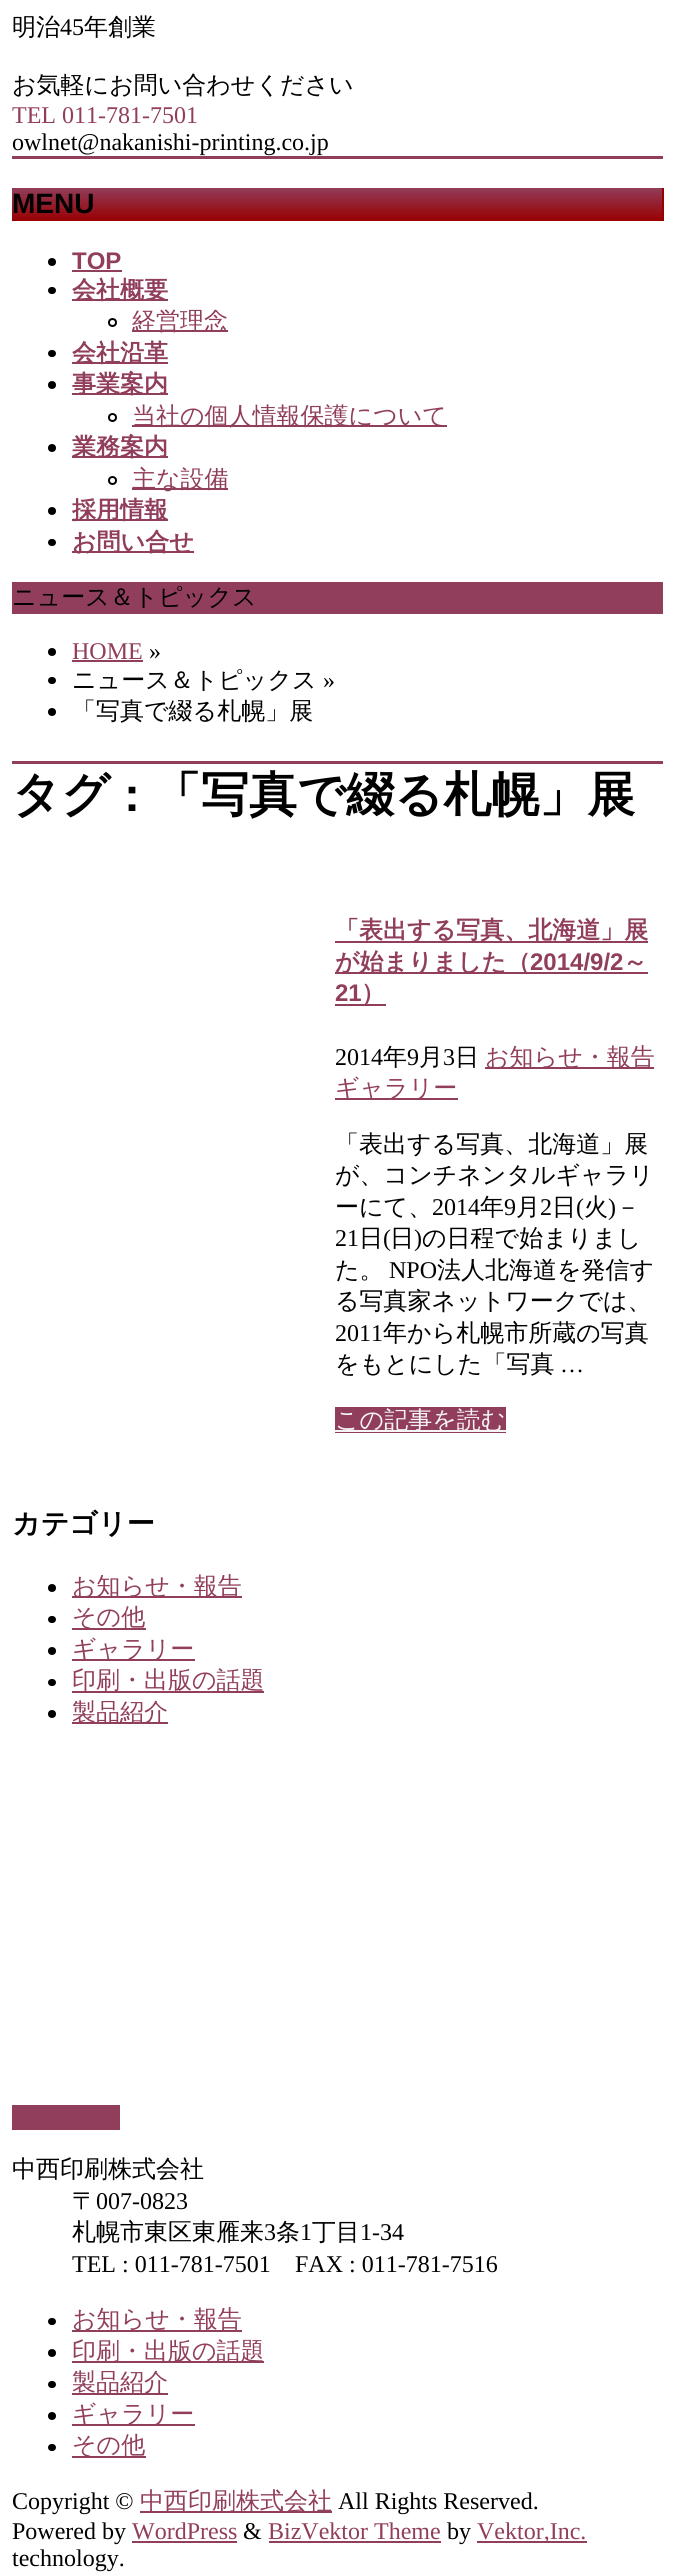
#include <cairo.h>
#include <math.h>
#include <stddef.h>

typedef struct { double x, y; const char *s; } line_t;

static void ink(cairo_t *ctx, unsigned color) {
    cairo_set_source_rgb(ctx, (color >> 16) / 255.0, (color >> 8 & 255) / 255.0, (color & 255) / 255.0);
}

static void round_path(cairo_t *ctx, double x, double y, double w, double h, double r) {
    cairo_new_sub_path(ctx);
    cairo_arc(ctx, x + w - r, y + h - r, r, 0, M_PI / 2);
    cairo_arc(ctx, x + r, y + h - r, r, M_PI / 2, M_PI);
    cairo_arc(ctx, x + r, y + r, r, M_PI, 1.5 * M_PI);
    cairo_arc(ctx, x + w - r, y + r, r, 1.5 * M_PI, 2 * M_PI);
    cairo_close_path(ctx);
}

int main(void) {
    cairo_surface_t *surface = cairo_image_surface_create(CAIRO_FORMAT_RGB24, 674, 2574);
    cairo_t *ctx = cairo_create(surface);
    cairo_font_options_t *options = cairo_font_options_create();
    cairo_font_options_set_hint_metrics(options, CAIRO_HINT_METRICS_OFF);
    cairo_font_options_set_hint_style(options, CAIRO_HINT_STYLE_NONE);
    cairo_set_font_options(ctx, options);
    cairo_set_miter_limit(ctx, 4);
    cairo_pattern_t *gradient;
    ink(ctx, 0xFFFFFF);
    cairo_paint(ctx);
    cairo_select_font_face(ctx, "WenQuanYi Zen Hei Medium", CAIRO_FONT_SLANT_NORMAL, CAIRO_FONT_WEIGHT_NORMAL);
    cairo_set_font_size(ctx, 24);
    ink(ctx, 0x000000);
    cairo_move_to(ctx, 12, 35);
    cairo_show_text(ctx, "明治");
    cairo_select_font_face(ctx, "Liberation Serif", CAIRO_FONT_SLANT_NORMAL, CAIRO_FONT_WEIGHT_NORMAL);
    cairo_move_to(ctx, 60, 35);
    cairo_show_text(ctx, "45");
    cairo_select_font_face(ctx, "WenQuanYi Zen Hei Medium", CAIRO_FONT_SLANT_NORMAL, CAIRO_FONT_WEIGHT_NORMAL);
    cairo_move_to(ctx, 84, 35);
    cairo_show_text(ctx, "年創業");
    cairo_move_to(ctx, 12, 93);
    cairo_show_text(ctx, "お気軽にお問い合わせください");
    cairo_select_font_face(ctx, "Liberation Serif", CAIRO_FONT_SLANT_NORMAL, CAIRO_FONT_WEIGHT_NORMAL);
    ink(ctx, 0x913E5C);
    cairo_move_to(ctx, 12, 123);
    cairo_show_text(ctx, "TEL 011-781-7501");
    ink(ctx, 0x000000);
    cairo_move_to(ctx, 12, 150);
    cairo_show_text(ctx, "owlnet@nakanishi-printing.co.jp");
    ink(ctx, 0x913E5C);
    cairo_rectangle(ctx, 12, 156, 651, 3);
    cairo_fill(ctx);
    gradient = cairo_pattern_create_linear(337, 187, 337, 221);
    cairo_pattern_add_color_stop_rgba(gradient, 0, 0.569, 0.243, 0.361, 1);
    cairo_pattern_add_color_stop_rgba(gradient, 1, 0.6, 0, 0, 1);
    cairo_set_source(ctx, gradient);
    cairo_pattern_destroy(gradient);
    cairo_rectangle(ctx, 12, 188, 650, 33);
    cairo_fill(ctx);
    ink(ctx, 0x990000);
    cairo_rectangle(ctx, 662, 188, 2, 33);
    cairo_fill(ctx);
    cairo_select_font_face(ctx, "Liberation Sans", CAIRO_FONT_SLANT_NORMAL, CAIRO_FONT_WEIGHT_BOLD);
    cairo_set_font_size(ctx, 28);
    ink(ctx, 0x000000);
    cairo_move_to(ctx, 12, 213);
    cairo_show_text(ctx, "MENU");
    cairo_new_path(ctx);
    cairo_arc(ctx, 52, 262, 4, 0, 2 * M_PI);
    cairo_fill(ctx);
    cairo_set_font_size(ctx, 24);
    ink(ctx, 0x913E5C);
    cairo_move_to(ctx, 72, 269);
    cairo_show_text(ctx, "TOP");
    cairo_rectangle(ctx, 72, 270, 50, 2);
    cairo_fill(ctx);
    ink(ctx, 0x000000);
    round_path(ctx, 48, 287, 8, 7, 3.5);
    cairo_fill(ctx);
    ink(ctx, 0x913E5C);
    cairo_rectangle(ctx, 72, 299, 96, 2);
    cairo_fill(ctx);
    cairo_select_font_face(ctx, "WenQuanYi Zen Hei", CAIRO_FONT_SLANT_NORMAL, CAIRO_FONT_WEIGHT_BOLD);
    cairo_move_to(ctx, 72, 298);
    cairo_show_text(ctx, "会社概要");
    cairo_new_path(ctx);
    cairo_arc(ctx, 112.5, 322.5, 3.5, 0, 2 * M_PI);
    ink(ctx, 0x000000);
    cairo_stroke(ctx);
    ink(ctx, 0x913E5C);
    cairo_rectangle(ctx, 132, 330, 96, 2);
    cairo_fill(ctx);
    cairo_select_font_face(ctx, "WenQuanYi Zen Hei Medium", CAIRO_FONT_SLANT_NORMAL, CAIRO_FONT_WEIGHT_NORMAL);
    cairo_move_to(ctx, 132, 329);
    cairo_show_text(ctx, "経営理念");
    ink(ctx, 0x000000);
    round_path(ctx, 48, 350, 8, 7, 3.5);
    cairo_fill(ctx);
    ink(ctx, 0x913E5C);
    cairo_rectangle(ctx, 72, 362, 96, 2);
    cairo_fill(ctx);
    cairo_select_font_face(ctx, "WenQuanYi Zen Hei", CAIRO_FONT_SLANT_NORMAL, CAIRO_FONT_WEIGHT_BOLD);
    cairo_move_to(ctx, 72, 361);
    cairo_show_text(ctx, "会社沿革");
    ink(ctx, 0x000000);
    cairo_new_path(ctx);
    cairo_arc(ctx, 52, 385, 4, 0, 2 * M_PI);
    cairo_fill(ctx);
    ink(ctx, 0x913E5C);
    cairo_rectangle(ctx, 72, 393, 96, 2);
    cairo_fill(ctx);
    cairo_move_to(ctx, 72, 392);
    cairo_show_text(ctx, "事業案内");
    cairo_new_path(ctx);
    cairo_arc(ctx, 112.5, 417.5, 3.5, 0, 2 * M_PI);
    ink(ctx, 0x000000);
    cairo_stroke(ctx);
    ink(ctx, 0x913E5C);
    cairo_rectangle(ctx, 132, 425, 315, 2);
    cairo_fill(ctx);
    cairo_select_font_face(ctx, "WenQuanYi Zen Hei Medium", CAIRO_FONT_SLANT_NORMAL, CAIRO_FONT_WEIGHT_NORMAL);
    cairo_move_to(ctx, 132, 424);
    cairo_show_text(ctx, "当社の個人情報保護について");
    ink(ctx, 0x000000);
    cairo_new_path(ctx);
    cairo_arc(ctx, 52, 448, 4, 0, 2 * M_PI);
    cairo_fill(ctx);
    ink(ctx, 0x913E5C);
    cairo_rectangle(ctx, 72, 456, 96, 2);
    cairo_fill(ctx);
    cairo_select_font_face(ctx, "WenQuanYi Zen Hei", CAIRO_FONT_SLANT_NORMAL, CAIRO_FONT_WEIGHT_BOLD);
    cairo_move_to(ctx, 72, 455);
    cairo_show_text(ctx, "業務案内");
    cairo_new_path(ctx);
    cairo_arc(ctx, 112.5, 480.5, 3.5, 0, 2 * M_PI);
    ink(ctx, 0x000000);
    cairo_stroke(ctx);
    ink(ctx, 0x913E5C);
    cairo_rectangle(ctx, 132, 488, 96, 2);
    cairo_fill(ctx);
    cairo_select_font_face(ctx, "WenQuanYi Zen Hei Medium", CAIRO_FONT_SLANT_NORMAL, CAIRO_FONT_WEIGHT_NORMAL);
    cairo_move_to(ctx, 132, 487);
    cairo_show_text(ctx, "主な設備");
    ink(ctx, 0x000000);
    cairo_new_path(ctx);
    cairo_arc(ctx, 52, 511, 4, 0, 2 * M_PI);
    cairo_fill(ctx);
    ink(ctx, 0x913E5C);
    cairo_rectangle(ctx, 72, 519, 96, 2);
    cairo_fill(ctx);
    cairo_select_font_face(ctx, "WenQuanYi Zen Hei", CAIRO_FONT_SLANT_NORMAL, CAIRO_FONT_WEIGHT_BOLD);
    cairo_move_to(ctx, 72, 518);
    cairo_show_text(ctx, "採用情報");
    ink(ctx, 0x000000);
    round_path(ctx, 48, 539, 8, 7, 3.5);
    cairo_fill(ctx);
    ink(ctx, 0x913E5C);
    cairo_rectangle(ctx, 72, 551, 122, 2);
    cairo_fill(ctx);
    cairo_move_to(ctx, 72, 550);
    cairo_show_text(ctx, "お問い合せ");
    cairo_rectangle(ctx, 12, 582, 651, 32);
    cairo_fill(ctx);
    cairo_select_font_face(ctx, "WenQuanYi Zen Hei Medium", CAIRO_FONT_SLANT_NORMAL, CAIRO_FONT_WEIGHT_NORMAL);
    ink(ctx, 0x000000);
    cairo_move_to(ctx, 12, 605);
    cairo_show_text(ctx, "ニュース＆トピックス");
    cairo_new_path(ctx);
    cairo_arc(ctx, 52, 652, 4, 0, 2 * M_PI);
    cairo_fill(ctx);
    cairo_select_font_face(ctx, "Liberation Serif", CAIRO_FONT_SLANT_NORMAL, CAIRO_FONT_WEIGHT_NORMAL);
    ink(ctx, 0x913E5C);
    cairo_move_to(ctx, 72, 659);
    cairo_show_text(ctx, "HOME");
    cairo_rectangle(ctx, 72, 660, 71, 2);
    cairo_fill(ctx);
    ink(ctx, 0x000000);
    cairo_move_to(ctx, 149, 659);
    cairo_show_text(ctx, "»");
    round_path(ctx, 48, 677, 8, 7, 3.5);
    cairo_fill(ctx);
    cairo_select_font_face(ctx, "WenQuanYi Zen Hei Medium", CAIRO_FONT_SLANT_NORMAL, CAIRO_FONT_WEIGHT_NORMAL);
    cairo_move_to(ctx, 72, 688);
    cairo_show_text(ctx, "ニュース＆トピックス");
    cairo_select_font_face(ctx, "Liberation Serif", CAIRO_FONT_SLANT_NORMAL, CAIRO_FONT_WEIGHT_NORMAL);
    cairo_move_to(ctx, 323, 688);
    cairo_show_text(ctx, "»");
    cairo_new_path(ctx);
    cairo_arc(ctx, 52, 712, 4, 0, 2 * M_PI);
    cairo_fill(ctx);
    cairo_select_font_face(ctx, "WenQuanYi Zen Hei Medium", CAIRO_FONT_SLANT_NORMAL, CAIRO_FONT_WEIGHT_NORMAL);
    cairo_move_to(ctx, 72, 719);
    cairo_show_text(ctx, "「写真で綴る札幌」展");
    ink(ctx, 0x913E5C);
    cairo_rectangle(ctx, 12, 761, 651, 3);
    cairo_fill(ctx);
    cairo_select_font_face(ctx, "WenQuanYi Zen Hei", CAIRO_FONT_SLANT_NORMAL, CAIRO_FONT_WEIGHT_BOLD);
    cairo_set_font_size(ctx, 48);
    ink(ctx, 0x000000);
    cairo_move_to(ctx, 12, 811);
    cairo_show_text(ctx, "タグ");
    cairo_select_font_face(ctx, "Liberation Sans", CAIRO_FONT_SLANT_NORMAL, CAIRO_FONT_WEIGHT_BOLD);
    cairo_move_to(ctx, 124, 811);
    cairo_show_text(ctx, ":");
    cairo_select_font_face(ctx, "WenQuanYi Zen Hei", CAIRO_FONT_SLANT_NORMAL, CAIRO_FONT_WEIGHT_BOLD);
    cairo_move_to(ctx, 153, 811);
    cairo_show_text(ctx, "「写真で綴る札幌」展");
    ink(ctx, 0x913E5C);
    cairo_rectangle(ctx, 335, 941, 313, 2);
    cairo_fill(ctx);
    cairo_set_font_size(ctx, 24);
    cairo_move_to(ctx, 335, 938);
    cairo_show_text(ctx, "「表出する写真、北海道」展");
    cairo_rectangle(ctx, 335, 972, 313, 2);
    cairo_fill(ctx);
    cairo_move_to(ctx, 335, 970);
    cairo_show_text(ctx, "が始まりました（");
    cairo_select_font_face(ctx, "Liberation Sans", CAIRO_FONT_SLANT_NORMAL, CAIRO_FONT_WEIGHT_BOLD);
    cairo_move_to(ctx, 530, 970);
    cairo_show_text(ctx, "2014/9/2");
    cairo_select_font_face(ctx, "WenQuanYi Zen Hei", CAIRO_FONT_SLANT_NORMAL, CAIRO_FONT_WEIGHT_BOLD);
    cairo_move_to(ctx, 623, 970);
    cairo_show_text(ctx, "～");
    cairo_select_font_face(ctx, "Liberation Sans", CAIRO_FONT_SLANT_NORMAL, CAIRO_FONT_WEIGHT_BOLD);
    cairo_move_to(ctx, 335, 1001);
    cairo_show_text(ctx, "21");
    cairo_rectangle(ctx, 335, 1004, 51, 2);
    cairo_fill(ctx);
    cairo_select_font_face(ctx, "WenQuanYi Zen Hei", CAIRO_FONT_SLANT_NORMAL, CAIRO_FONT_WEIGHT_BOLD);
    cairo_move_to(ctx, 361, 1001);
    cairo_show_text(ctx, "）");
    cairo_select_font_face(ctx, "Liberation Serif", CAIRO_FONT_SLANT_NORMAL, CAIRO_FONT_WEIGHT_NORMAL);
    ink(ctx, 0x000000);
    cairo_move_to(ctx, 335, 1065);
    cairo_show_text(ctx, "2014");
    cairo_select_font_face(ctx, "WenQuanYi Zen Hei Medium", CAIRO_FONT_SLANT_NORMAL, CAIRO_FONT_WEIGHT_NORMAL);
    cairo_move_to(ctx, 383, 1065);
    cairo_show_text(ctx, "年");
    cairo_select_font_face(ctx, "Liberation Serif", CAIRO_FONT_SLANT_NORMAL, CAIRO_FONT_WEIGHT_NORMAL);
    cairo_move_to(ctx, 407, 1065);
    cairo_show_text(ctx, "9");
    cairo_select_font_face(ctx, "WenQuanYi Zen Hei Medium", CAIRO_FONT_SLANT_NORMAL, CAIRO_FONT_WEIGHT_NORMAL);
    cairo_move_to(ctx, 419, 1065);
    cairo_show_text(ctx, "月");
    cairo_select_font_face(ctx, "Liberation Serif", CAIRO_FONT_SLANT_NORMAL, CAIRO_FONT_WEIGHT_NORMAL);
    cairo_move_to(ctx, 443, 1065);
    cairo_show_text(ctx, "3");
    cairo_select_font_face(ctx, "WenQuanYi Zen Hei Medium", CAIRO_FONT_SLANT_NORMAL, CAIRO_FONT_WEIGHT_NORMAL);
    cairo_move_to(ctx, 455, 1065);
    cairo_show_text(ctx, "日");
    ink(ctx, 0x913E5C);
    cairo_rectangle(ctx, 485, 1067, 169, 2);
    cairo_fill(ctx);
    cairo_move_to(ctx, 485, 1065);
    cairo_show_text(ctx, "お知らせ・報告");
    cairo_rectangle(ctx, 335, 1098, 123, 2);
    cairo_fill(ctx);
    cairo_move_to(ctx, 335, 1096);
    cairo_show_text(ctx, "ギャラリー");
    ink(ctx, 0x000000);
    {
        static const line_t items[] = {
            {335, 1152, "「表出する写真、北海道」展"},
            {335, 1183, "が、コンチネンタルギャラリ"},
            {335, 1215, "ーにて、"},
        };
        for (size_t i = 0; i < sizeof items / sizeof *items; i++) {
            cairo_move_to(ctx, items[i].x, items[i].y);
            cairo_show_text(ctx, items[i].s);
        }
    }
    cairo_select_font_face(ctx, "Liberation Serif", CAIRO_FONT_SLANT_NORMAL, CAIRO_FONT_WEIGHT_NORMAL);
    cairo_move_to(ctx, 432, 1215);
    cairo_show_text(ctx, "2014");
    cairo_select_font_face(ctx, "WenQuanYi Zen Hei Medium", CAIRO_FONT_SLANT_NORMAL, CAIRO_FONT_WEIGHT_NORMAL);
    cairo_move_to(ctx, 480, 1215);
    cairo_show_text(ctx, "年");
    cairo_select_font_face(ctx, "Liberation Serif", CAIRO_FONT_SLANT_NORMAL, CAIRO_FONT_WEIGHT_NORMAL);
    cairo_move_to(ctx, 504, 1215);
    cairo_show_text(ctx, "9");
    cairo_select_font_face(ctx, "WenQuanYi Zen Hei Medium", CAIRO_FONT_SLANT_NORMAL, CAIRO_FONT_WEIGHT_NORMAL);
    cairo_move_to(ctx, 516, 1215);
    cairo_show_text(ctx, "月");
    cairo_select_font_face(ctx, "Liberation Serif", CAIRO_FONT_SLANT_NORMAL, CAIRO_FONT_WEIGHT_NORMAL);
    cairo_move_to(ctx, 540, 1215);
    cairo_show_text(ctx, "2");
    cairo_select_font_face(ctx, "WenQuanYi Zen Hei Medium", CAIRO_FONT_SLANT_NORMAL, CAIRO_FONT_WEIGHT_NORMAL);
    cairo_move_to(ctx, 552, 1215);
    cairo_show_text(ctx, "日");
    cairo_select_font_face(ctx, "Liberation Serif", CAIRO_FONT_SLANT_NORMAL, CAIRO_FONT_WEIGHT_NORMAL);
    cairo_move_to(ctx, 576, 1215);
    cairo_show_text(ctx, "(");
    cairo_select_font_face(ctx, "WenQuanYi Zen Hei Medium", CAIRO_FONT_SLANT_NORMAL, CAIRO_FONT_WEIGHT_NORMAL);
    cairo_move_to(ctx, 584, 1215);
    cairo_show_text(ctx, "火");
    cairo_select_font_face(ctx, "Liberation Serif", CAIRO_FONT_SLANT_NORMAL, CAIRO_FONT_WEIGHT_NORMAL);
    cairo_move_to(ctx, 608, 1215);
    cairo_show_text(ctx, ")");
    cairo_select_font_face(ctx, "WenQuanYi Zen Hei Medium", CAIRO_FONT_SLANT_NORMAL, CAIRO_FONT_WEIGHT_NORMAL);
    cairo_move_to(ctx, 616, 1215);
    cairo_show_text(ctx, "－");
    cairo_select_font_face(ctx, "Liberation Serif", CAIRO_FONT_SLANT_NORMAL, CAIRO_FONT_WEIGHT_NORMAL);
    cairo_move_to(ctx, 335, 1246);
    cairo_show_text(ctx, "21");
    cairo_select_font_face(ctx, "WenQuanYi Zen Hei Medium", CAIRO_FONT_SLANT_NORMAL, CAIRO_FONT_WEIGHT_NORMAL);
    cairo_move_to(ctx, 359, 1246);
    cairo_show_text(ctx, "日");
    cairo_select_font_face(ctx, "Liberation Serif", CAIRO_FONT_SLANT_NORMAL, CAIRO_FONT_WEIGHT_NORMAL);
    cairo_move_to(ctx, 383, 1246);
    cairo_show_text(ctx, "(");
    cairo_select_font_face(ctx, "WenQuanYi Zen Hei Medium", CAIRO_FONT_SLANT_NORMAL, CAIRO_FONT_WEIGHT_NORMAL);
    cairo_move_to(ctx, 390, 1246);
    cairo_show_text(ctx, "日");
    cairo_select_font_face(ctx, "Liberation Serif", CAIRO_FONT_SLANT_NORMAL, CAIRO_FONT_WEIGHT_NORMAL);
    cairo_move_to(ctx, 414, 1246);
    cairo_show_text(ctx, ")");
    cairo_select_font_face(ctx, "WenQuanYi Zen Hei Medium", CAIRO_FONT_SLANT_NORMAL, CAIRO_FONT_WEIGHT_NORMAL);
    cairo_move_to(ctx, 422, 1246);
    cairo_show_text(ctx, "の日程で始まりまし");
    cairo_move_to(ctx, 335, 1278);
    cairo_show_text(ctx, "た。");
    cairo_select_font_face(ctx, "Liberation Serif", CAIRO_FONT_SLANT_NORMAL, CAIRO_FONT_WEIGHT_NORMAL);
    cairo_move_to(ctx, 389, 1278);
    cairo_show_text(ctx, "NPO");
    cairo_select_font_face(ctx, "WenQuanYi Zen Hei Medium", CAIRO_FONT_SLANT_NORMAL, CAIRO_FONT_WEIGHT_NORMAL);
    cairo_move_to(ctx, 437, 1278);
    cairo_show_text(ctx, "法人北海道を発信す");
    cairo_move_to(ctx, 335, 1309);
    cairo_show_text(ctx, "る写真家ネットワークでは、");
    cairo_select_font_face(ctx, "Liberation Serif", CAIRO_FONT_SLANT_NORMAL, CAIRO_FONT_WEIGHT_NORMAL);
    cairo_move_to(ctx, 335, 1341);
    cairo_show_text(ctx, "2011");
    cairo_select_font_face(ctx, "WenQuanYi Zen Hei Medium", CAIRO_FONT_SLANT_NORMAL, CAIRO_FONT_WEIGHT_NORMAL);
    cairo_move_to(ctx, 383, 1341);
    cairo_show_text(ctx, "年から札幌市所蔵の写真");
    cairo_move_to(ctx, 335, 1372);
    cairo_show_text(ctx, "をもとにした「写真");
    cairo_select_font_face(ctx, "Liberation Serif", CAIRO_FONT_SLANT_NORMAL, CAIRO_FONT_WEIGHT_NORMAL);
    cairo_move_to(ctx, 560, 1372);
    cairo_show_text(ctx, "…");
    ink(ctx, 0x913E5C);
    cairo_rectangle(ctx, 335, 1407, 171, 26);
    cairo_fill(ctx);
    ink(ctx, 0xF5F5F5);
    cairo_rectangle(ctx, 335, 1430, 171, 2);
    cairo_fill(ctx);
    cairo_select_font_face(ctx, "WenQuanYi Zen Hei Medium", CAIRO_FONT_SLANT_NORMAL, CAIRO_FONT_WEIGHT_NORMAL);
    cairo_move_to(ctx, 335, 1428);
    cairo_show_text(ctx, "この記事を読む");
    cairo_select_font_face(ctx, "WenQuanYi Zen Hei", CAIRO_FONT_SLANT_NORMAL, CAIRO_FONT_WEIGHT_BOLD);
    cairo_set_font_size(ctx, 28);
    ink(ctx, 0x000000);
    cairo_move_to(ctx, 12, 1533);
    cairo_show_text(ctx, "カテゴリー");
    cairo_new_path(ctx);
    cairo_arc(ctx, 52, 1588, 4, 0, 2 * M_PI);
    cairo_fill(ctx);
    ink(ctx, 0x913E5C);
    cairo_rectangle(ctx, 72, 1596, 170, 2);
    cairo_fill(ctx);
    cairo_select_font_face(ctx, "WenQuanYi Zen Hei Medium", CAIRO_FONT_SLANT_NORMAL, CAIRO_FONT_WEIGHT_NORMAL);
    cairo_set_font_size(ctx, 24);
    cairo_move_to(ctx, 72, 1594);
    cairo_show_text(ctx, "お知らせ・報告");
    ink(ctx, 0x000000);
    round_path(ctx, 48, 1616, 8, 7, 3.5);
    cairo_fill(ctx);
    ink(ctx, 0x913E5C);
    cairo_rectangle(ctx, 72, 1628, 74, 2);
    cairo_fill(ctx);
    cairo_move_to(ctx, 72, 1625);
    cairo_show_text(ctx, "その他");
    ink(ctx, 0x000000);
    cairo_new_path(ctx);
    cairo_arc(ctx, 52, 1651, 4, 0, 2 * M_PI);
    cairo_fill(ctx);
    ink(ctx, 0x913E5C);
    cairo_rectangle(ctx, 72, 1659, 123, 2);
    cairo_fill(ctx);
    cairo_move_to(ctx, 72, 1657);
    cairo_show_text(ctx, "ギャラリー");
    ink(ctx, 0x000000);
    round_path(ctx, 48, 1679, 8, 7, 3.5);
    cairo_fill(ctx);
    ink(ctx, 0x913E5C);
    cairo_rectangle(ctx, 72, 1691, 192, 2);
    cairo_fill(ctx);
    cairo_move_to(ctx, 72, 1688);
    cairo_show_text(ctx, "印刷・出版の話題");
    ink(ctx, 0x000000);
    cairo_new_path(ctx);
    cairo_arc(ctx, 52, 1714, 4, 0, 2 * M_PI);
    cairo_fill(ctx);
    ink(ctx, 0x913E5C);
    cairo_rectangle(ctx, 72, 1722, 96, 2);
    cairo_fill(ctx);
    cairo_move_to(ctx, 72, 1720);
    cairo_show_text(ctx, "製品紹介");
    cairo_rectangle(ctx, 12, 2105, 108, 25);
    cairo_fill(ctx);
    ink(ctx, 0x000000);
    cairo_move_to(ctx, 12, 2177);
    cairo_show_text(ctx, "中西印刷株式会社");
    cairo_move_to(ctx, 72, 2209);
    cairo_show_text(ctx, "〒");
    cairo_select_font_face(ctx, "Liberation Serif", CAIRO_FONT_SLANT_NORMAL, CAIRO_FONT_WEIGHT_NORMAL);
    cairo_move_to(ctx, 96, 2209);
    cairo_show_text(ctx, "007-0823");
    cairo_select_font_face(ctx, "WenQuanYi Zen Hei Medium", CAIRO_FONT_SLANT_NORMAL, CAIRO_FONT_WEIGHT_NORMAL);
    cairo_move_to(ctx, 72, 2240);
    cairo_show_text(ctx, "札幌市東区東雁来");
    cairo_select_font_face(ctx, "Liberation Serif", CAIRO_FONT_SLANT_NORMAL, CAIRO_FONT_WEIGHT_NORMAL);
    cairo_move_to(ctx, 264, 2240);
    cairo_show_text(ctx, "3");
    cairo_select_font_face(ctx, "WenQuanYi Zen Hei Medium", CAIRO_FONT_SLANT_NORMAL, CAIRO_FONT_WEIGHT_NORMAL);
    cairo_move_to(ctx, 276, 2240);
    cairo_show_text(ctx, "条");
    cairo_select_font_face(ctx, "Liberation Serif", CAIRO_FONT_SLANT_NORMAL, CAIRO_FONT_WEIGHT_NORMAL);
    cairo_move_to(ctx, 300, 2240);
    cairo_show_text(ctx, "1");
    cairo_select_font_face(ctx, "WenQuanYi Zen Hei Medium", CAIRO_FONT_SLANT_NORMAL, CAIRO_FONT_WEIGHT_NORMAL);
    cairo_move_to(ctx, 312, 2240);
    cairo_show_text(ctx, "丁目");
    cairo_select_font_face(ctx, "Liberation Serif", CAIRO_FONT_SLANT_NORMAL, CAIRO_FONT_WEIGHT_NORMAL);
    {
        static const line_t items[] = {
            {360, 2240, "1-34"},
            {72, 2272, "TEL : 011-781-7501"},
            {295, 2272, "FAX : 011-781-7516"},
        };
        for (size_t i = 0; i < sizeof items / sizeof *items; i++) {
            cairo_move_to(ctx, items[i].x, items[i].y);
            cairo_show_text(ctx, items[i].s);
        }
    }
    round_path(ctx, 48, 2318, 8, 7, 3.5);
    cairo_fill(ctx);
    ink(ctx, 0x913E5C);
    cairo_rectangle(ctx, 72, 2330, 170, 2);
    cairo_fill(ctx);
    cairo_select_font_face(ctx, "WenQuanYi Zen Hei Medium", CAIRO_FONT_SLANT_NORMAL, CAIRO_FONT_WEIGHT_NORMAL);
    cairo_move_to(ctx, 72, 2327);
    cairo_show_text(ctx, "お知らせ・報告");
    ink(ctx, 0x000000);
    cairo_new_path(ctx);
    cairo_arc(ctx, 52, 2353, 4, 0, 2 * M_PI);
    cairo_fill(ctx);
    ink(ctx, 0x913E5C);
    cairo_rectangle(ctx, 72, 2361, 192, 2);
    cairo_fill(ctx);
    cairo_move_to(ctx, 72, 2359);
    cairo_show_text(ctx, "印刷・出版の話題");
    ink(ctx, 0x000000);
    round_path(ctx, 48, 2381, 8, 7, 3.5);
    cairo_fill(ctx);
    ink(ctx, 0x913E5C);
    cairo_rectangle(ctx, 72, 2393, 96, 2);
    cairo_fill(ctx);
    cairo_move_to(ctx, 72, 2390);
    cairo_show_text(ctx, "製品紹介");
    ink(ctx, 0x000000);
    cairo_new_path(ctx);
    cairo_arc(ctx, 52, 2416, 4, 0, 2 * M_PI);
    cairo_fill(ctx);
    ink(ctx, 0x913E5C);
    cairo_rectangle(ctx, 72, 2424, 123, 2);
    cairo_fill(ctx);
    cairo_move_to(ctx, 72, 2422);
    cairo_show_text(ctx, "ギャラリー");
    ink(ctx, 0x000000);
    round_path(ctx, 48, 2444, 8, 7, 3.5);
    cairo_fill(ctx);
    ink(ctx, 0x913E5C);
    cairo_rectangle(ctx, 72, 2456, 74, 2);
    cairo_fill(ctx);
    cairo_move_to(ctx, 72, 2453);
    cairo_show_text(ctx, "その他");
    cairo_select_font_face(ctx, "Liberation Serif", CAIRO_FONT_SLANT_NORMAL, CAIRO_FONT_WEIGHT_NORMAL);
    ink(ctx, 0x000000);
    cairo_move_to(ctx, 12, 2509);
    cairo_show_text(ctx, "Copyright ©");
    ink(ctx, 0x913E5C);
    cairo_rectangle(ctx, 140, 2511, 192, 2);
    cairo_fill(ctx);
    cairo_select_font_face(ctx, "WenQuanYi Zen Hei Medium", CAIRO_FONT_SLANT_NORMAL, CAIRO_FONT_WEIGHT_NORMAL);
    cairo_move_to(ctx, 140, 2509);
    cairo_show_text(ctx, "中西印刷株式会社");
    cairo_select_font_face(ctx, "Liberation Serif", CAIRO_FONT_SLANT_NORMAL, CAIRO_FONT_WEIGHT_NORMAL);
    ink(ctx, 0x000000);
    cairo_move_to(ctx, 338, 2509);
    cairo_show_text(ctx, "All Rights Reserved.");
    cairo_move_to(ctx, 12, 2539);
    cairo_show_text(ctx, "Powered by");
    ink(ctx, 0x913E5C);
    cairo_move_to(ctx, 132, 2539);
    cairo_show_text(ctx, "WordPress");
    cairo_rectangle(ctx, 132, 2541, 105, 2);
    cairo_fill(ctx);
    ink(ctx, 0x000000);
    cairo_move_to(ctx, 243, 2539);
    cairo_show_text(ctx, "&");
    ink(ctx, 0x913E5C);
    cairo_move_to(ctx, 268, 2539);
    cairo_show_text(ctx, "BizVektor Theme");
    cairo_rectangle(ctx, 269, 2541, 172, 2);
    cairo_fill(ctx);
    ink(ctx, 0x000000);
    cairo_move_to(ctx, 447, 2539);
    cairo_show_text(ctx, "by");
    ink(ctx, 0x913E5C);
    cairo_rectangle(ctx, 477, 2541, 110, 2);
    cairo_fill(ctx);
    cairo_move_to(ctx, 477, 2539);
    cairo_show_text(ctx, "Vektor,Inc.");
    ink(ctx, 0x000000);
    cairo_move_to(ctx, 12, 2566);
    cairo_show_text(ctx, "technology.");
    cairo_surface_write_to_png(surface, "image.png");
    cairo_font_options_destroy(options);
    cairo_destroy(ctx);
    cairo_surface_destroy(surface);
    return 0;
}
